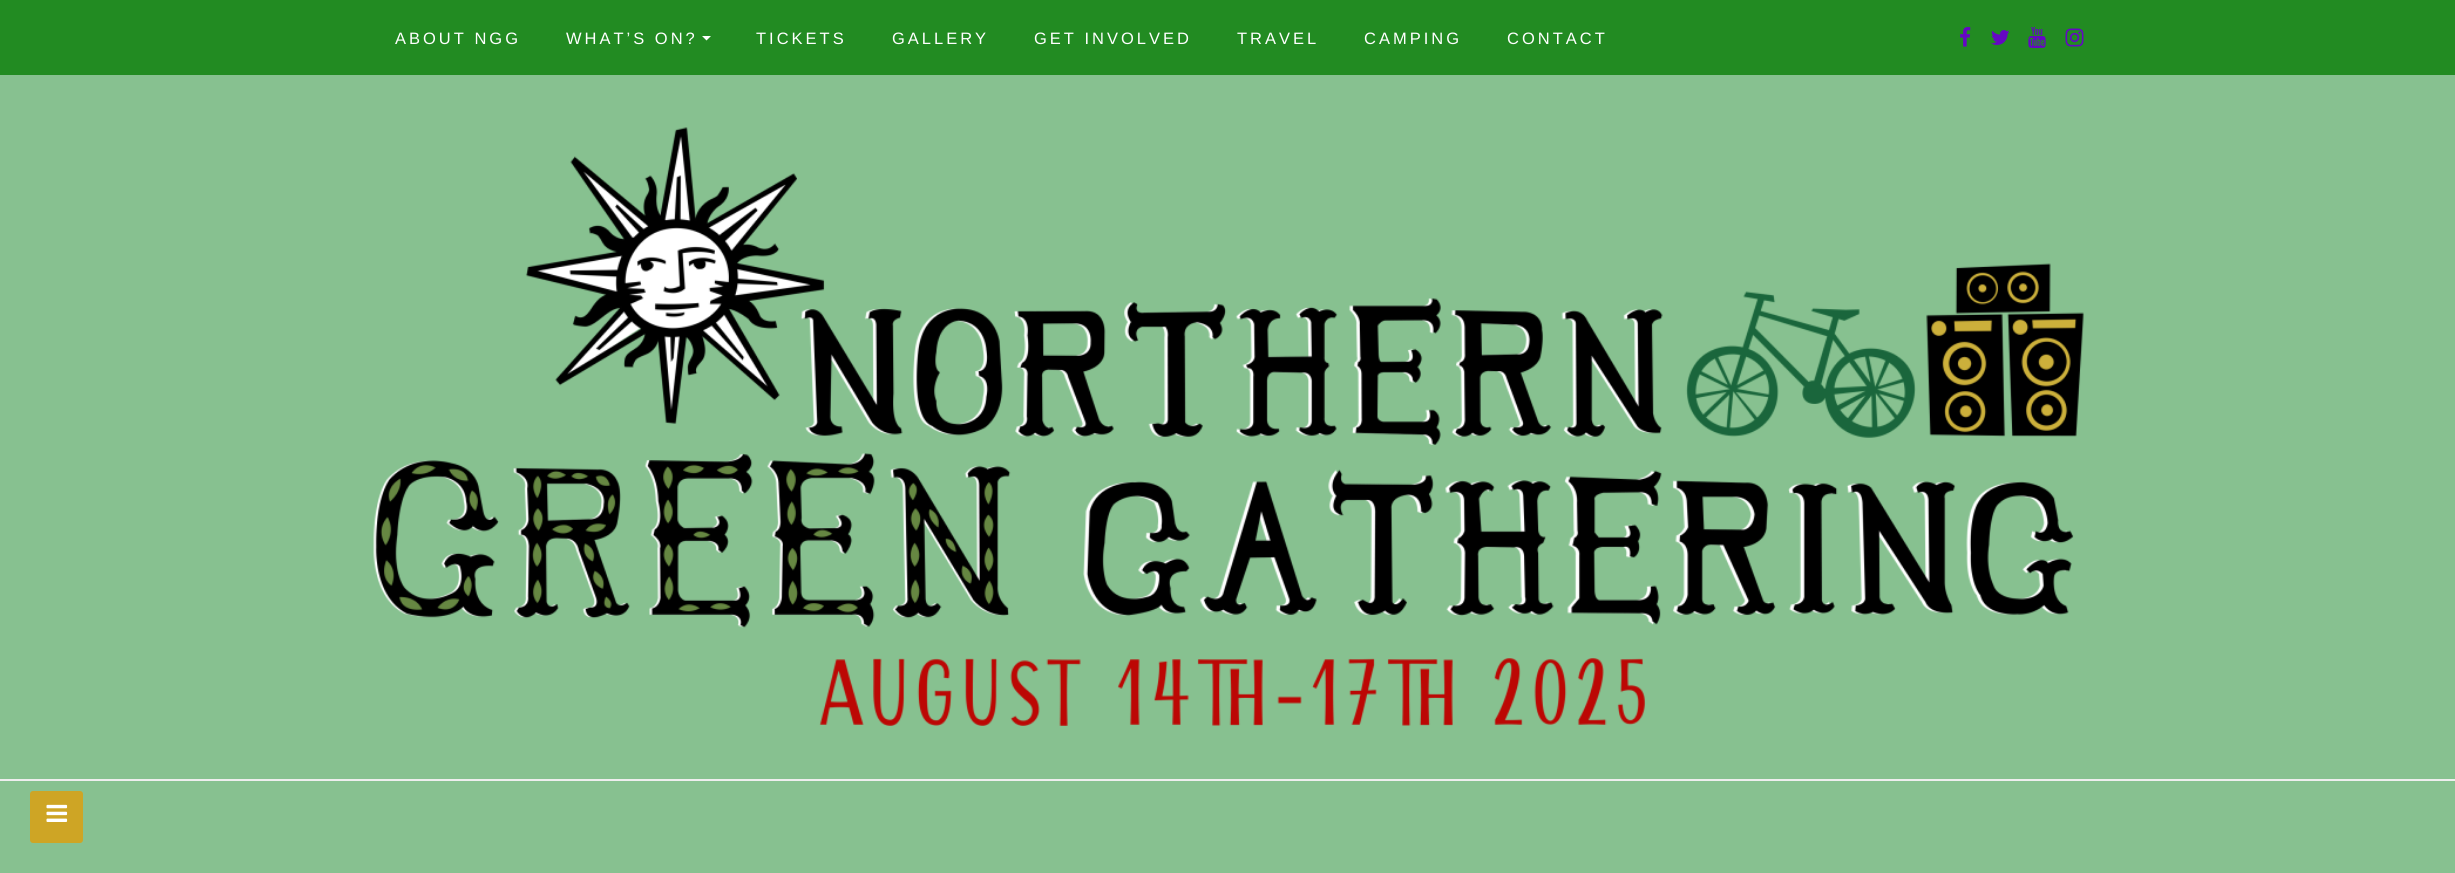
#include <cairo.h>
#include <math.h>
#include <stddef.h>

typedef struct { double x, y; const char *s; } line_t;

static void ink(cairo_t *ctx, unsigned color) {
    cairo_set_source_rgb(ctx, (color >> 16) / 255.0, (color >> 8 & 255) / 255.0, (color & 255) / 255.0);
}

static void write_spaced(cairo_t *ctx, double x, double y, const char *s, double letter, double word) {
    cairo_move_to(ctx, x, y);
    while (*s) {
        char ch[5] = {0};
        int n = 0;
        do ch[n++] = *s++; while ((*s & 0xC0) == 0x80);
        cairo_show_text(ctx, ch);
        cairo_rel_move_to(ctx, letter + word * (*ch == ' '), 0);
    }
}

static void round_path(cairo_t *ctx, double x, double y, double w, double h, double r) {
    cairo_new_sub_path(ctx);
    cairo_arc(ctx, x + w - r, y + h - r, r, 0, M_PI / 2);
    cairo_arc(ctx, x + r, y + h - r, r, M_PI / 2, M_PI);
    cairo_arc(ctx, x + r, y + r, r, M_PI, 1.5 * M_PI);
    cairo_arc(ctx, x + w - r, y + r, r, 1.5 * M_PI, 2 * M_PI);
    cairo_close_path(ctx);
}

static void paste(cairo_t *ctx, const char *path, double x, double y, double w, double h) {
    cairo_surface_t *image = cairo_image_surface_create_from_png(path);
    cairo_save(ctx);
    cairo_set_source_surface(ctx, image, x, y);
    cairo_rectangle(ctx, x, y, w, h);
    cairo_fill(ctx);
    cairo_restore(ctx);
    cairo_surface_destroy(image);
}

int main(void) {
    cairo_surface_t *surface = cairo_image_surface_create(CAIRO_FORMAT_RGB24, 2455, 873);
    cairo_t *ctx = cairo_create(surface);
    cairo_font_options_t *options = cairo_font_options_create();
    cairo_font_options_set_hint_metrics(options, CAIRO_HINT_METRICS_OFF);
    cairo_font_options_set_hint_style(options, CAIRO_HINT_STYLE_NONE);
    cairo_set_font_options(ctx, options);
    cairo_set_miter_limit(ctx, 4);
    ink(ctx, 0x87C190);
    cairo_paint(ctx);
    ink(ctx, 0x228B22);
    cairo_rectangle(ctx, 0, 0, 2455, 75);
    cairo_fill(ctx);
    cairo_select_font_face(ctx, "Liberation Sans", CAIRO_FONT_SLANT_NORMAL, CAIRO_FONT_WEIGHT_NORMAL);
    cairo_set_font_size(ctx, 16.5);
    ink(ctx, 0xFFFFFF);
    write_spaced(ctx, 395, 44, "ABOUT NGG", 3, 0);
    write_spaced(ctx, 566, 44, "WHAT’S ON?", 3, 0);
    cairo_new_path(ctx);
    cairo_move_to(ctx, 702, 36);
    cairo_line_to(ctx, 711, 36);
    cairo_line_to(ctx, 706.5, 40.5);
    cairo_close_path(ctx);
    cairo_fill(ctx);
    {
        static const line_t items[] = {
            {756, 44, "TICKETS"},
            {892, 44, "GALLERY"},
            {1034, 44, "GET INVOLVED"},
            {1237, 44, "TRAVEL"},
            {1364, 44, "CAMPING"},
            {1507, 44, "CONTACT"},
        };
        for (size_t i = 0; i < sizeof items / sizeof *items; i++) {
            write_spaced(ctx, items[i].x, items[i].y, items[i].s, 3, 0);
        }
    }
    paste(ctx, "media/1.png", 1960, 27, 11, 20);
    paste(ctx, "media/2.png", 1991, 30, 19, 15);
    paste(ctx, "media/3.png", 2028, 27, 18, 21);
    paste(ctx, "media/4.png", 2065, 28, 19, 19);
    ink(ctx, 0xEEEEEE);
    cairo_rectangle(ctx, 0, 779, 2455, 2);
    cairo_fill(ctx);
    paste(ctx, "media/5.png", 373, 127, 1711, 599);
    ink(ctx, 0xCEA525);
    round_path(ctx, 30, 791, 53, 52, 3);
    cairo_fill(ctx);
    paste(ctx, "media/6.png", 46, 804, 22, 18);
    cairo_surface_write_to_png(surface, "image.png");
    cairo_font_options_destroy(options);
    cairo_destroy(ctx);
    cairo_surface_destroy(surface);
    return 0;
}
